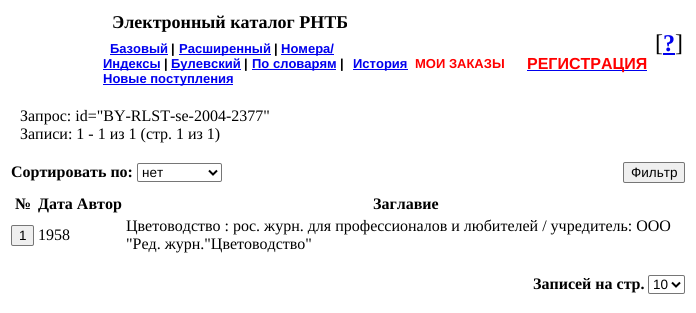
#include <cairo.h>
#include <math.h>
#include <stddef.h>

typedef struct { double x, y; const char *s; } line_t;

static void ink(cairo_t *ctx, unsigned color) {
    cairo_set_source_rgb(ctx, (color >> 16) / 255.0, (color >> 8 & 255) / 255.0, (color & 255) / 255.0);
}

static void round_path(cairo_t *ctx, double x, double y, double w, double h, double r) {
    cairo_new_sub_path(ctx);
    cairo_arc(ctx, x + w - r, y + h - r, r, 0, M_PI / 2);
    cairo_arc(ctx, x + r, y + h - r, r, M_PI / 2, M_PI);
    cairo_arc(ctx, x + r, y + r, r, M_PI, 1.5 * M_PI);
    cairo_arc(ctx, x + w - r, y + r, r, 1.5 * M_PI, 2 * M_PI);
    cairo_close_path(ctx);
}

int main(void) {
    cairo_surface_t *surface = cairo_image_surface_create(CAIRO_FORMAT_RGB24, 696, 313);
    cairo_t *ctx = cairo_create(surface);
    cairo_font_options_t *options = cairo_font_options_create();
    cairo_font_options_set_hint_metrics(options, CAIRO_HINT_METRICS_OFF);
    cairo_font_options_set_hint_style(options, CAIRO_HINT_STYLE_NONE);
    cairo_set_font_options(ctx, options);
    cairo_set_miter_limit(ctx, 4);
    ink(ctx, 0xFFFFFF);
    cairo_paint(ctx);
    cairo_select_font_face(ctx, "Liberation Serif", CAIRO_FONT_SLANT_NORMAL, CAIRO_FONT_WEIGHT_BOLD);
    cairo_set_font_size(ctx, 18);
    ink(ctx, 0x000000);
    cairo_move_to(ctx, 112, 28);
    cairo_show_text(ctx, "Электронный каталог РНТБ");
    cairo_select_font_face(ctx, "Liberation Serif", CAIRO_FONT_SLANT_NORMAL, CAIRO_FONT_WEIGHT_NORMAL);
    cairo_set_font_size(ctx, 24);
    cairo_move_to(ctx, 655, 51);
    cairo_show_text(ctx, "[");
    ink(ctx, 0x0000EE);
    cairo_rectangle(ctx, 663, 53, 12, 2);
    cairo_fill(ctx);
    cairo_select_font_face(ctx, "Liberation Serif", CAIRO_FONT_SLANT_NORMAL, CAIRO_FONT_WEIGHT_BOLD);
    cairo_move_to(ctx, 663, 51);
    cairo_show_text(ctx, "?");
    cairo_select_font_face(ctx, "Liberation Serif", CAIRO_FONT_SLANT_NORMAL, CAIRO_FONT_WEIGHT_NORMAL);
    ink(ctx, 0x000000);
    cairo_move_to(ctx, 675, 51);
    cairo_show_text(ctx, "]");
    cairo_select_font_face(ctx, "Liberation Sans", CAIRO_FONT_SLANT_NORMAL, CAIRO_FONT_WEIGHT_BOLD);
    cairo_set_font_size(ctx, 13);
    ink(ctx, 0x0000EE);
    cairo_move_to(ctx, 110, 53);
    cairo_show_text(ctx, "Базовый");
    cairo_rectangle(ctx, 110, 54, 58, 1);
    cairo_fill(ctx);
    ink(ctx, 0x000000);
    cairo_move_to(ctx, 171, 53);
    cairo_show_text(ctx, "|");
    ink(ctx, 0x0000EE);
    cairo_rectangle(ctx, 179, 54, 92, 1);
    cairo_fill(ctx);
    cairo_move_to(ctx, 179, 53);
    cairo_show_text(ctx, "Расширенный");
    ink(ctx, 0x000000);
    cairo_move_to(ctx, 274, 53);
    cairo_show_text(ctx, "|");
    ink(ctx, 0x0000EE);
    cairo_rectangle(ctx, 281, 54, 53, 1);
    cairo_fill(ctx);
    cairo_move_to(ctx, 281, 53);
    cairo_show_text(ctx, "Номера/");
    cairo_rectangle(ctx, 103, 69, 57, 1);
    cairo_fill(ctx);
    cairo_move_to(ctx, 103, 68);
    cairo_show_text(ctx, "Индексы");
    ink(ctx, 0x000000);
    cairo_move_to(ctx, 164, 68);
    cairo_show_text(ctx, "|");
    ink(ctx, 0x0000EE);
    cairo_rectangle(ctx, 171, 69, 70, 1);
    cairo_fill(ctx);
    cairo_move_to(ctx, 171, 68);
    cairo_show_text(ctx, "Булевский");
    ink(ctx, 0x000000);
    cairo_move_to(ctx, 244, 68);
    cairo_show_text(ctx, "|");
    ink(ctx, 0x0000EE);
    cairo_rectangle(ctx, 252, 69, 84, 1);
    cairo_fill(ctx);
    cairo_move_to(ctx, 252, 68);
    cairo_show_text(ctx, "По словарям");
    ink(ctx, 0x000000);
    cairo_move_to(ctx, 340, 68);
    cairo_show_text(ctx, "|");
    ink(ctx, 0x0000EE);
    cairo_rectangle(ctx, 103, 84, 130, 1);
    cairo_fill(ctx);
    cairo_move_to(ctx, 103, 83);
    cairo_show_text(ctx, "Новые поступления");
    cairo_rectangle(ctx, 353, 69, 55, 1);
    cairo_fill(ctx);
    cairo_move_to(ctx, 353, 68);
    cairo_show_text(ctx, "История");
    ink(ctx, 0xFF0000);
    cairo_move_to(ctx, 415, 68);
    cairo_show_text(ctx, "МОИ ЗАКАЗЫ");
    ink(ctx, 0x0000EE);
    cairo_rectangle(ctx, 527, 70, 120, 1);
    cairo_fill(ctx);
    cairo_set_font_size(ctx, 16);
    ink(ctx, 0xFF0000);
    cairo_move_to(ctx, 527, 69);
    cairo_show_text(ctx, "РЕГИСТРАЦИЯ");
    cairo_select_font_face(ctx, "Liberation Serif", CAIRO_FONT_SLANT_NORMAL, CAIRO_FONT_WEIGHT_NORMAL);
    ink(ctx, 0x000000);
    cairo_move_to(ctx, 20, 121);
    cairo_show_text(ctx, "Запрос: id=\"BY-RLST-se-2004-2377\"");
    cairo_move_to(ctx, 20, 139);
    cairo_show_text(ctx, "Записи: 1 - 1 из 1 (стр. 1 из 1)");
    cairo_select_font_face(ctx, "Liberation Serif", CAIRO_FONT_SLANT_NORMAL, CAIRO_FONT_WEIGHT_BOLD);
    cairo_move_to(ctx, 11, 177);
    cairo_show_text(ctx, "Сортировать по:");
    round_path(ctx, 137.5, 163.5, 84, 18, 1.5);
    ink(ctx, 0x767676);
    cairo_set_line_width(ctx, 1);
    cairo_stroke(ctx);
    cairo_new_path(ctx);
    cairo_move_to(ctx, 209, 170.5);
    cairo_line_to(ctx, 213, 174.5);
    cairo_line_to(ctx, 217, 170.5);
    ink(ctx, 0x000000);
    cairo_set_line_width(ctx, 2);
    cairo_stroke(ctx);
    cairo_select_font_face(ctx, "Liberation Sans", CAIRO_FONT_SLANT_NORMAL, CAIRO_FONT_WEIGHT_NORMAL);
    cairo_set_font_size(ctx, 13.5);
    cairo_move_to(ctx, 142, 177);
    cairo_show_text(ctx, "нет");
    ink(ctx, 0xEFEFEF);
    round_path(ctx, 623.5, 162.5, 61, 20, 1.5);
    cairo_fill_preserve(ctx);
    ink(ctx, 0x767676);
    cairo_set_line_width(ctx, 1);
    cairo_stroke(ctx);
    ink(ctx, 0x000000);
    cairo_move_to(ctx, 631, 177);
    cairo_show_text(ctx, "Фильтр");
    cairo_select_font_face(ctx, "Liberation Serif", CAIRO_FONT_SLANT_NORMAL, CAIRO_FONT_WEIGHT_BOLD);
    cairo_set_font_size(ctx, 16);
    {
        static const line_t items[] = {
            {15, 209, "№"},
            {38, 209, "Дата Автор"},
            {373, 209, "Заглавие"},
        };
        for (size_t i = 0; i < sizeof items / sizeof *items; i++) {
            cairo_move_to(ctx, items[i].x, items[i].y);
            cairo_show_text(ctx, items[i].s);
        }
    }
    ink(ctx, 0xEFEFEF);
    round_path(ctx, 11.5, 225.5, 22, 20, 1.5);
    cairo_fill_preserve(ctx);
    ink(ctx, 0x767676);
    cairo_stroke(ctx);
    cairo_select_font_face(ctx, "Liberation Sans", CAIRO_FONT_SLANT_NORMAL, CAIRO_FONT_WEIGHT_NORMAL);
    cairo_set_font_size(ctx, 13.5);
    ink(ctx, 0x000000);
    cairo_move_to(ctx, 19, 240);
    cairo_show_text(ctx, "1");
    cairo_select_font_face(ctx, "Liberation Serif", CAIRO_FONT_SLANT_NORMAL, CAIRO_FONT_WEIGHT_NORMAL);
    cairo_set_font_size(ctx, 16);
    {
        static const line_t items[] = {
            {38, 240, "1958"},
            {126, 231, "Цветоводство : рос. журн. для профессионалов и любителей / учредитель: ООО"},
            {126, 249, "\"Ред. журн.\"Цветоводство\""},
        };
        for (size_t i = 0; i < sizeof items / sizeof *items; i++) {
            cairo_move_to(ctx, items[i].x, items[i].y);
            cairo_show_text(ctx, items[i].s);
        }
    }
    cairo_select_font_face(ctx, "Liberation Serif", CAIRO_FONT_SLANT_NORMAL, CAIRO_FONT_WEIGHT_BOLD);
    cairo_move_to(ctx, 533, 289);
    cairo_show_text(ctx, "Записей на стр.");
    round_path(ctx, 648.5, 275.5, 36, 18, 1.5);
    ink(ctx, 0x767676);
    cairo_stroke(ctx);
    cairo_new_path(ctx);
    cairo_move_to(ctx, 672, 282.5);
    cairo_line_to(ctx, 676, 286.5);
    cairo_line_to(ctx, 680, 282.5);
    ink(ctx, 0x000000);
    cairo_set_line_width(ctx, 2);
    cairo_stroke(ctx);
    cairo_select_font_face(ctx, "Liberation Sans", CAIRO_FONT_SLANT_NORMAL, CAIRO_FONT_WEIGHT_NORMAL);
    cairo_set_font_size(ctx, 13.5);
    cairo_move_to(ctx, 653, 289);
    cairo_show_text(ctx, "10");
    cairo_surface_write_to_png(surface, "image.png");
    cairo_font_options_destroy(options);
    cairo_destroy(ctx);
    cairo_surface_destroy(surface);
    return 0;
}
